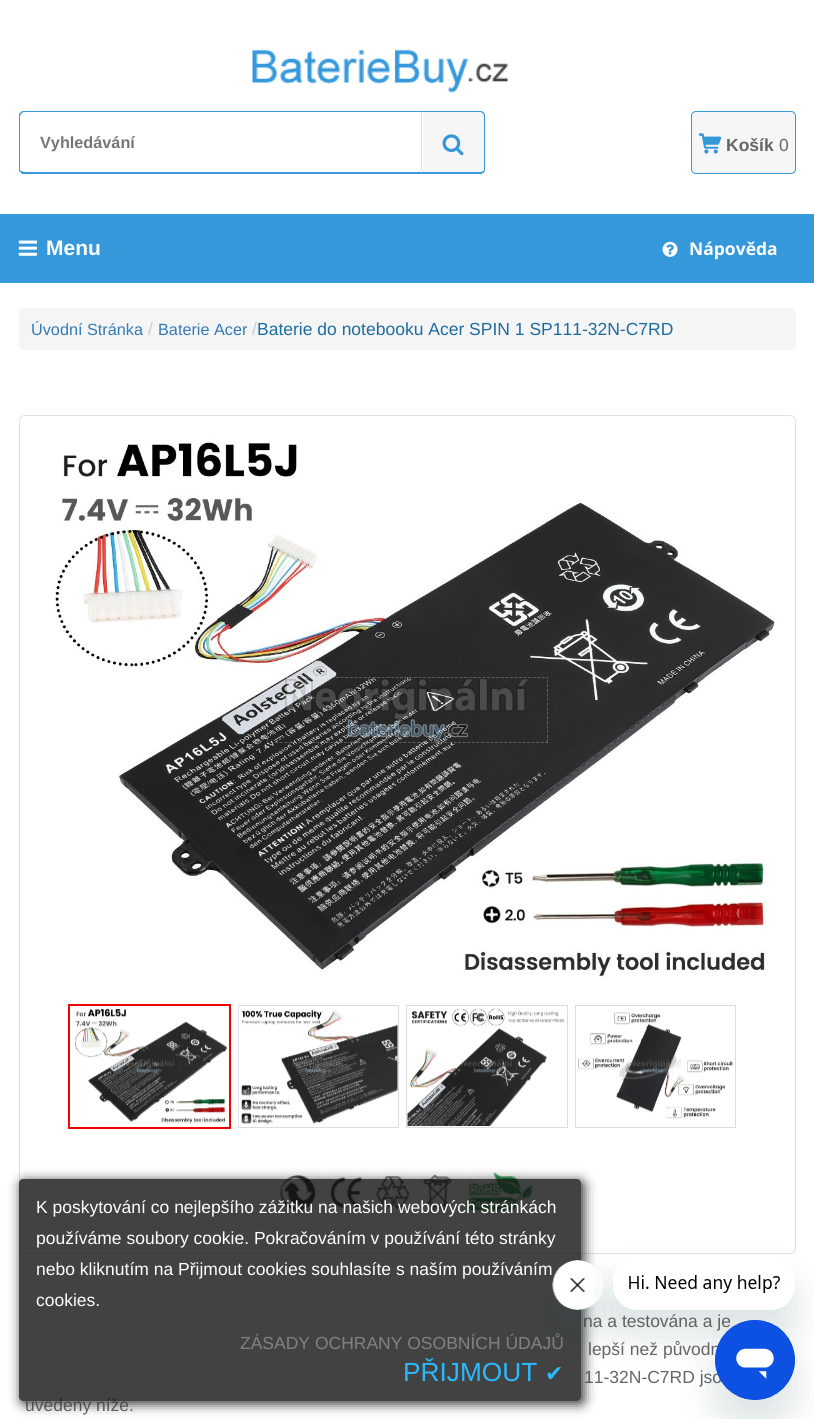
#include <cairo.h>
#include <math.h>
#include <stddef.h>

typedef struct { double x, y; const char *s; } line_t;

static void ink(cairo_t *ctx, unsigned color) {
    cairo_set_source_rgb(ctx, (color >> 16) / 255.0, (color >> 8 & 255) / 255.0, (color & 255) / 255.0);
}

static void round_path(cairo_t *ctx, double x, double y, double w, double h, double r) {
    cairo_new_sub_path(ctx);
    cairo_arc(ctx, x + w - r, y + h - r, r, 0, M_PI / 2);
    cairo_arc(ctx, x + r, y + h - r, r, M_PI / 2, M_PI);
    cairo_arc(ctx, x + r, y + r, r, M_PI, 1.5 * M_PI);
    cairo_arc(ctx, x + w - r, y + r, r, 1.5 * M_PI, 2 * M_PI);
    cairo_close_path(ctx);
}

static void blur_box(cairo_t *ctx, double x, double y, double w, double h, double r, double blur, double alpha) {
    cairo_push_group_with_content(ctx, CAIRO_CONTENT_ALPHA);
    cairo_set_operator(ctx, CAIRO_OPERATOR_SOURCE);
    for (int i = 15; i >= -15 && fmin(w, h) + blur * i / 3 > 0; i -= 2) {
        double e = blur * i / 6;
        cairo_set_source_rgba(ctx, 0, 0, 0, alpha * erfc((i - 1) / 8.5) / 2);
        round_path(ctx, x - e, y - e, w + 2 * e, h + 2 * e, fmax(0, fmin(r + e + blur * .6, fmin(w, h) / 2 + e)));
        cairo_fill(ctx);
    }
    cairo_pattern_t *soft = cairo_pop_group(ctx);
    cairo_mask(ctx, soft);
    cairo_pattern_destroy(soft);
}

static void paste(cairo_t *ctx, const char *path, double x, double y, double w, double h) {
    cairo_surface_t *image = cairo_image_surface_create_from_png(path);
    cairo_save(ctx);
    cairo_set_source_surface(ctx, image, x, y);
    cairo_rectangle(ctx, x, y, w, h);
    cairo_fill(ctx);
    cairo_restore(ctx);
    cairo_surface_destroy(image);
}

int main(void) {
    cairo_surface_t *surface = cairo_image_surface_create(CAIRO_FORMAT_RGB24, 814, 1419);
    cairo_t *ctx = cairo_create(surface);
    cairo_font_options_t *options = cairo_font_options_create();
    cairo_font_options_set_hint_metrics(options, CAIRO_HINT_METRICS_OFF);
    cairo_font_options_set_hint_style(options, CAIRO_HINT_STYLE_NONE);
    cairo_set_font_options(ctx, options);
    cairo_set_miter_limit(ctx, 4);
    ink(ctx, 0xFFFFFF);
    cairo_paint(ctx);
    paste(ctx, "media/1.png", 252, 49, 256, 44);
    ink(ctx, 0x3498DB);
    cairo_new_path(ctx);
    cairo_move_to(ctx, 24, 112);
    cairo_curve_to(ctx, 23, 112, 22, 113, 21, 114);
    cairo_line_to(ctx, 20, 113);
    cairo_line_to(ctx, 22, 111);
    cairo_line_to(ctx, 422, 111);
    cairo_line_to(ctx, 421, 113);
    cairo_line_to(ctx, 421, 112);
    cairo_close_path(ctx);
    cairo_fill(ctx);
    ink(ctx, 0xE1E1E1);
    cairo_new_path(ctx);
    cairo_move_to(ctx, 422, 112);
    cairo_line_to(ctx, 422, 173);
    cairo_line_to(ctx, 421, 172);
    cairo_line_to(ctx, 421, 113);
    cairo_close_path(ctx);
    cairo_fill(ctx);
    ink(ctx, 0x3498DB);
    cairo_new_path(ctx);
    cairo_move_to(ctx, 22, 174);
    cairo_line_to(ctx, 20, 172);
    cairo_line_to(ctx, 21, 171);
    cairo_line_to(ctx, 24, 172);
    cairo_line_to(ctx, 421, 172);
    cairo_line_to(ctx, 422, 173);
    cairo_line_to(ctx, 422, 174);
    cairo_close_path(ctx);
    cairo_fill(ctx);
    cairo_new_path(ctx);
    cairo_move_to(ctx, 20, 172);
    cairo_curve_to(ctx, 19, 172, 19, 170, 19, 169);
    cairo_line_to(ctx, 19, 116);
    cairo_curve_to(ctx, 19, 115, 19, 113, 20, 113);
    cairo_line_to(ctx, 21, 114);
    cairo_line_to(ctx, 20, 116);
    cairo_line_to(ctx, 20, 170);
    cairo_line_to(ctx, 21, 171);
    cairo_close_path(ctx);
    cairo_fill(ctx);
    cairo_select_font_face(ctx, "Liberation Sans", CAIRO_FONT_SLANT_NORMAL, CAIRO_FONT_WEIGHT_BOLD);
    cairo_set_font_size(ctx, 16.25);
    ink(ctx, 0x757575);
    cairo_move_to(ctx, 40, 148);
    cairo_show_text(ctx, "Vyhledávání");
    ink(ctx, 0xF6F6F6);
    cairo_new_path(ctx);
    cairo_move_to(ctx, 423, 111);
    cairo_line_to(ctx, 480, 111);
    cairo_curve_to(ctx, 483, 111, 485, 113, 485, 116);
    cairo_line_to(ctx, 485, 169);
    cairo_curve_to(ctx, 485, 172, 483, 174, 480, 174);
    cairo_line_to(ctx, 423, 174);
    cairo_close_path(ctx);
    cairo_fill(ctx);
    ink(ctx, 0x3498DB);
    cairo_set_fill_rule(ctx, CAIRO_FILL_RULE_EVEN_ODD);
    cairo_new_path(ctx);
    cairo_move_to(ctx, 422, 111);
    cairo_line_to(ctx, 480, 111);
    cairo_curve_to(ctx, 483, 111, 485, 113, 485, 116);
    cairo_line_to(ctx, 485, 169);
    cairo_curve_to(ctx, 485, 172, 483, 174, 480, 174);
    cairo_line_to(ctx, 422, 174);
    cairo_close_path(ctx);
    cairo_move_to(ctx, 422, 112);
    cairo_line_to(ctx, 480, 112);
    cairo_curve_to(ctx, 482, 112, 484, 114, 484, 116);
    cairo_line_to(ctx, 484, 169);
    cairo_curve_to(ctx, 484, 171, 482, 172, 480, 172);
    cairo_line_to(ctx, 422, 172);
    cairo_close_path(ctx);
    cairo_fill(ctx);
    paste(ctx, "media/2.png", 442, 134, 22, 22);
    ink(ctx, 0xF6F6F6);
    round_path(ctx, 691.5, 111.5, 104, 62, 4.5);
    cairo_fill_preserve(ctx);
    ink(ctx, 0x3498DB);
    cairo_set_line_width(ctx, 1);
    cairo_stroke(ctx);
    paste(ctx, "media/3.png", 698, 133, 24, 21);
    cairo_set_font_size(ctx, 17.5);
    ink(ctx, 0x666666);
    cairo_move_to(ctx, 726, 151);
    cairo_show_text(ctx, "Košík");
    cairo_select_font_face(ctx, "Liberation Sans", CAIRO_FONT_SLANT_NORMAL, CAIRO_FONT_WEIGHT_NORMAL);
    cairo_move_to(ctx, 779, 151);
    cairo_show_text(ctx, "0");
    ink(ctx, 0x3498DB);
    cairo_rectangle(ctx, 0, 214, 814, 69);
    cairo_fill(ctx);
    paste(ctx, "media/4.png", 18, 240, 20, 16);
    cairo_select_font_face(ctx, "Liberation Sans", CAIRO_FONT_SLANT_NORMAL, CAIRO_FONT_WEIGHT_BOLD);
    cairo_set_font_size(ctx, 21);
    ink(ctx, 0xFFFFFF);
    cairo_move_to(ctx, 46, 255);
    cairo_show_text(ctx, "Menu");
    paste(ctx, "media/5.png", 662, 241, 16, 16);
    cairo_select_font_face(ctx, "Open Sans", CAIRO_FONT_SLANT_NORMAL, CAIRO_FONT_WEIGHT_BOLD);
    cairo_set_font_size(ctx, 17.5);
    cairo_move_to(ctx, 689, 255);
    cairo_show_text(ctx, "Nápověda");
    ink(ctx, 0xF5F5F5);
    round_path(ctx, 19, 308, 777, 42, 5);
    cairo_fill(ctx);
    cairo_select_font_face(ctx, "Liberation Sans", CAIRO_FONT_SLANT_NORMAL, CAIRO_FONT_WEIGHT_NORMAL);
    cairo_set_font_size(ctx, 16.25);
    ink(ctx, 0x337AB7);
    cairo_move_to(ctx, 31, 335);
    cairo_show_text(ctx, "Úvodní Stránka");
    cairo_set_font_size(ctx, 17.5);
    ink(ctx, 0xCCCCCC);
    cairo_move_to(ctx, 148, 335);
    cairo_show_text(ctx, "/");
    cairo_set_font_size(ctx, 16.25);
    ink(ctx, 0x337AB7);
    cairo_move_to(ctx, 158, 335);
    cairo_show_text(ctx, "Baterie Acer");
    cairo_set_font_size(ctx, 17.5);
    ink(ctx, 0xCCCCCC);
    cairo_move_to(ctx, 252, 335);
    cairo_show_text(ctx, "/");
    ink(ctx, 0x1D6CA1);
    cairo_move_to(ctx, 257, 335);
    cairo_show_text(ctx, "Baterie do notebooku Acer SPIN 1 SP111-32N-C7RD");
    round_path(ctx, 19.5, 415.5, 776, 838, 5.5);
    ink(ctx, 0xE1E1E1);
    cairo_stroke(ctx);
    paste(ctx, "media/6.png", 53, 439, 724, 539);
    cairo_rectangle(ctx, 69.5, 1005.5, 160, 122);
    ink(ctx, 0xEF0404);
    cairo_stroke(ctx);
    paste(ctx, "media/7.png", 75, 1008, 152, 116);
    cairo_rectangle(ctx, 68.5, 1004.5, 162, 124);
    cairo_stroke(ctx);
    cairo_rectangle(ctx, 238.5, 1005.5, 160, 122);
    ink(ctx, 0xDDDDDD);
    cairo_stroke(ctx);
    paste(ctx, "media/8.png", 238, 1006, 160, 120);
    cairo_rectangle(ctx, 406.5, 1005.5, 161, 122);
    cairo_stroke(ctx);
    paste(ctx, "media/9.png", 407, 1008, 157, 118);
    cairo_rectangle(ctx, 575.5, 1005.5, 160, 122);
    cairo_stroke(ctx);
    paste(ctx, "media/10.png", 578, 1012, 155, 107);
    paste(ctx, "media/11.png", 279, 1172, 256, 41);
    ink(ctx, 0x666666);
    {
        static const line_t items[] = {
            {583, 1327, "na a testována a je"},
            {588, 1355, "lepší než původn"},
            {584, 1383, "11-32N-C7RD jso"},
            {25, 1411, "uvedeny níže."},
        };
        for (size_t i = 0; i < sizeof items / sizeof *items; i++) {
            cairo_move_to(ctx, items[i].x, items[i].y);
            cairo_show_text(ctx, items[i].s);
        }
    }
    cairo_save(ctx);
    cairo_new_path(ctx);
    cairo_move_to(ctx, 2, 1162);
    cairo_line_to(ctx, 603, 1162);
    cairo_line_to(ctx, 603, 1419);
    cairo_line_to(ctx, 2, 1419);
    cairo_close_path(ctx);
    cairo_move_to(ctx, 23, 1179);
    cairo_line_to(ctx, 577, 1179);
    cairo_curve_to(ctx, 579, 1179, 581, 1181, 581, 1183);
    cairo_line_to(ctx, 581, 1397);
    cairo_curve_to(ctx, 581, 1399, 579, 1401, 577, 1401);
    cairo_line_to(ctx, 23, 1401);
    cairo_curve_to(ctx, 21, 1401, 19, 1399, 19, 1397);
    cairo_line_to(ctx, 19, 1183);
    cairo_curve_to(ctx, 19, 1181, 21, 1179, 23, 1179);
    cairo_close_path(ctx);
    cairo_clip(ctx);
    ink(ctx, 0x303030);
    blur_box(ctx, 21, 1181, 563, 223, 4, 6, 1);
    cairo_restore(ctx);
    cairo_set_source_rgba(ctx, 0.078, 0.078, 0.078, 0.8);
    round_path(ctx, 19, 1179, 562, 222, 4);
    cairo_fill(ctx);
    ink(ctx, 0xFFFFFF);
    {
        static const line_t items[] = {
            {36, 1213, "K poskytování co nejlepšího zážitku na našich webových stránkách"},
            {36, 1244, "používáme soubory cookie. Pokračováním v používání této stránky"},
            {36, 1275, "nebo kliknutím na Přijmout cookies souhlasíte s naším používáním"},
            {36, 1306, "cookies."},
        };
        for (size_t i = 0; i < sizeof items / sizeof *items; i++) {
            cairo_move_to(ctx, items[i].x, items[i].y);
            cairo_show_text(ctx, items[i].s);
        }
    }
    ink(ctx, 0x818181);
    cairo_move_to(ctx, 240, 1349);
    cairo_show_text(ctx, "ZÁSADY OCHRANY OSOBNÍCH ÚDAJŮ");
    cairo_set_font_size(ctx, 26.25);
    ink(ctx, 0x2BB9FD);
    cairo_move_to(ctx, 403, 1381);
    cairo_show_text(ctx, "PŘIJMOUT");
    cairo_select_font_face(ctx, "DejaVu Sans", CAIRO_FONT_SLANT_NORMAL, CAIRO_FONT_WEIGHT_NORMAL);
    cairo_set_font_size(ctx, 22);
    cairo_move_to(ctx, 545, 1381);
    cairo_show_text(ctx, "✔");
    cairo_save(ctx);
    cairo_new_path(ctx);
    cairo_move_to(ctx, 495, 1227);
    cairo_line_to(ctx, 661, 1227);
    cairo_line_to(ctx, 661, 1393);
    cairo_line_to(ctx, 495, 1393);
    cairo_close_path(ctx);
    cairo_move_to(ctx, 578, 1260);
    cairo_curve_to(ctx, 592, 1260, 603, 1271, 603, 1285);
    cairo_curve_to(ctx, 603, 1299, 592, 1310, 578, 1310);
    cairo_curve_to(ctx, 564, 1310, 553, 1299, 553, 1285);
    cairo_curve_to(ctx, 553, 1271, 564, 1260, 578, 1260);
    cairo_close_path(ctx);
    cairo_clip(ctx);
    ink(ctx, 0x17494D);
    blur_box(ctx, 553, 1285, 50, 50, 25, 19, 0.15);
    cairo_restore(ctx);
    paste(ctx, "media/13.png", 552, 1260, 44, 50);
    cairo_save(ctx);
    cairo_new_path(ctx);
    cairo_move_to(ctx, 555, 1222);
    cairo_line_to(ctx, 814, 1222);
    cairo_line_to(ctx, 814, 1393);
    cairo_line_to(ctx, 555, 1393);
    cairo_close_path(ctx);
    cairo_move_to(ctx, 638, 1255);
    cairo_line_to(ctx, 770, 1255);
    cairo_curve_to(ctx, 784, 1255, 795, 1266, 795, 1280);
    cairo_line_to(ctx, 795, 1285);
    cairo_curve_to(ctx, 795, 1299, 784, 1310, 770, 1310);
    cairo_line_to(ctx, 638, 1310);
    cairo_curve_to(ctx, 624, 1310, 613, 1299, 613, 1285);
    cairo_line_to(ctx, 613, 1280);
    cairo_curve_to(ctx, 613, 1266, 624, 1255, 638, 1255);
    cairo_close_path(ctx);
    cairo_clip(ctx);
    ink(ctx, 0x17494D);
    blur_box(ctx, 613, 1280, 182, 55, 25, 19, 0.15);
    cairo_restore(ctx);
    paste(ctx, "media/12.png", 613, 1275, 167, 31);
    ink(ctx, 0x17494D);
    blur_box(ctx, 715, 1345, 80, 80, 40, 19, 0.15);
    paste(ctx, "media/14.png", 715, 1320, 80, 80);
    cairo_surface_write_to_png(surface, "image.png");
    cairo_font_options_destroy(options);
    cairo_destroy(ctx);
    cairo_surface_destroy(surface);
    return 0;
}
